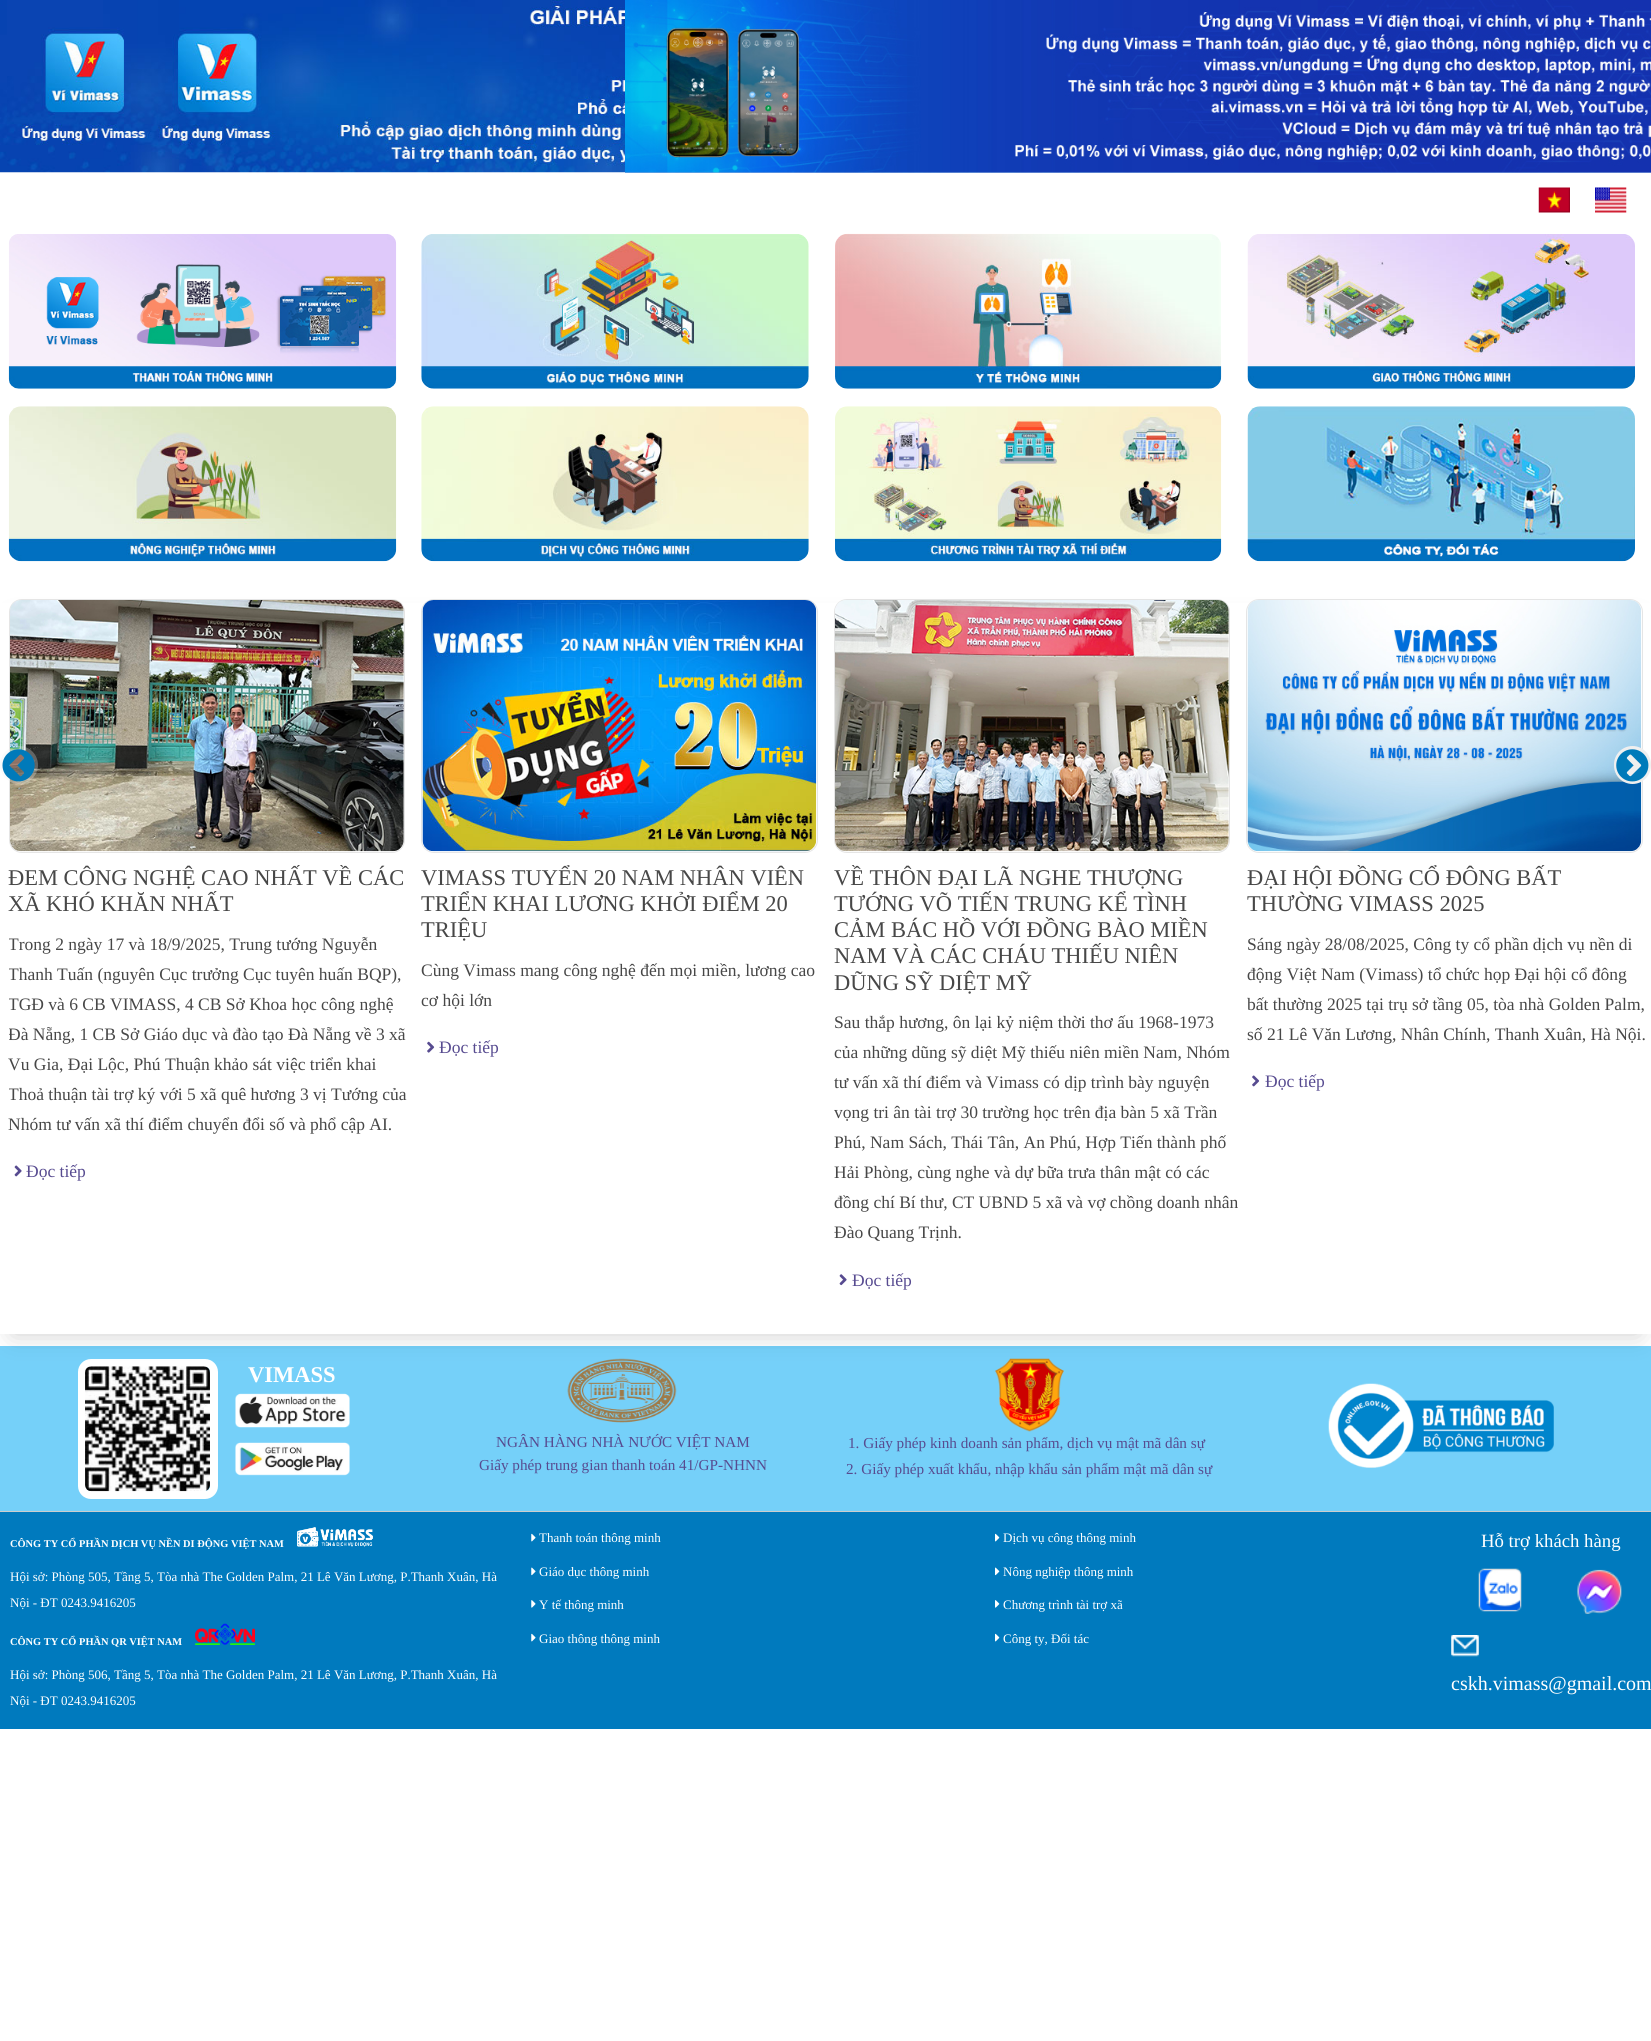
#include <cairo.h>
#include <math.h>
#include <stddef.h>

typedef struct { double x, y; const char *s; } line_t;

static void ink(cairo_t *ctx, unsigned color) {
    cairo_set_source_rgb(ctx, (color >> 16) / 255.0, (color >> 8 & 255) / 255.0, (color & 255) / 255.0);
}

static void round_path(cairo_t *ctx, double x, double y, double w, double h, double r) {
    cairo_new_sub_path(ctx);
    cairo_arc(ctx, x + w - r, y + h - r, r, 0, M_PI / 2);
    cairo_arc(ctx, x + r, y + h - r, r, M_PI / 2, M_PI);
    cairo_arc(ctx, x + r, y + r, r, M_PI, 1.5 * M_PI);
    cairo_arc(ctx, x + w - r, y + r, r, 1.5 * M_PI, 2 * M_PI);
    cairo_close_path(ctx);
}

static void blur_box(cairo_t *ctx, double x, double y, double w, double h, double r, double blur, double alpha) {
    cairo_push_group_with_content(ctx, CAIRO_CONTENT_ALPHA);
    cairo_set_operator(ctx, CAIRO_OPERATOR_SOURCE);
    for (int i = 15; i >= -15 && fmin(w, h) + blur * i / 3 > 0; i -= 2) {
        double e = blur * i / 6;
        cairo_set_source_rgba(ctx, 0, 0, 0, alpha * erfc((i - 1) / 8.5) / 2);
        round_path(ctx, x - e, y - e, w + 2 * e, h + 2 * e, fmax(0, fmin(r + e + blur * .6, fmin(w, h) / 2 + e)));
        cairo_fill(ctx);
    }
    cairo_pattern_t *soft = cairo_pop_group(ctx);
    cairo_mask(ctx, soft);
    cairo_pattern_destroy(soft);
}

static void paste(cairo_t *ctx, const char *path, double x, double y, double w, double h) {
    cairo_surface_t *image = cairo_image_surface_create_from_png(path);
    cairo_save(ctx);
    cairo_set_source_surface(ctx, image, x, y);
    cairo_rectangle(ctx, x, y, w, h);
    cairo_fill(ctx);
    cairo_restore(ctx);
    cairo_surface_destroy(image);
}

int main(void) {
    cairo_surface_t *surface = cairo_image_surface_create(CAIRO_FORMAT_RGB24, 1651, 2041);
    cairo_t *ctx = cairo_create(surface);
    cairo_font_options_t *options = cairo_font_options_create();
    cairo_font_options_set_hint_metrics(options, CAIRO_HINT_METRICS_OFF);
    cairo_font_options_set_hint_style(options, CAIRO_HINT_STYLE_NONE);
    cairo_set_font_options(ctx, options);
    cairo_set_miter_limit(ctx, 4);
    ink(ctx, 0xFFFFFF);
    cairo_paint(ctx);
    paste(ctx, "media/1.png", 0, 0, 1651, 173);
    paste(ctx, "media/3.png", 625, 172, 1026, 1);
    paste(ctx, "media/4.png", 625, 172, 1026, 1);
    paste(ctx, "media/2.png", 625, 0, 1026, 173);
    paste(ctx, "media/5.png", 1538, 187, 32, 26);
    paste(ctx, "media/6.png", 1595, 187, 32, 26);
    paste(ctx, "media/7.png", 8, 234, 389, 155);
    paste(ctx, "media/8.png", 421, 234, 388, 155);
    paste(ctx, "media/9.png", 835, 233, 387, 156);
    paste(ctx, "media/10.png", 1247, 234, 388, 155);
    paste(ctx, "media/11.png", 8, 406, 389, 156);
    paste(ctx, "media/12.png", 421, 406, 388, 156);
    paste(ctx, "media/13.png", 835, 406, 387, 156);
    paste(ctx, "media/14.png", 1247, 406, 388, 156);
    ink(ctx, 0x75D0F9);
    cairo_rectangle(ctx, 0, 1346, 1651, 165);
    cairo_fill(ctx);
    round_path(ctx, 82, 1363, 132, 132, 9);
    ink(ctx, 0xFFFFFF);
    cairo_set_line_width(ctx, 8);
    cairo_stroke(ctx);
    paste(ctx, "media/25.png", 85, 1366, 125, 126);
    paste(ctx, "media/28.png", 567, 1358, 110, 65);
    paste(ctx, "media/29.png", 995, 1358, 69, 74);
    ink(ctx, 0x000000);
    blur_box(ctx, 13, 624, 1626, 710, 0, 12.5, 0.2);
    ink(ctx, 0xFFFFFF);
    cairo_rectangle(ctx, 0, 603, 1651, 731);
    cairo_fill(ctx);
    round_path(ctx, 9.5, 599.5, 395, 253, 12.5);
    ink(ctx, 0xE5E5E5);
    cairo_set_line_width(ctx, 1);
    cairo_stroke(ctx);
    paste(ctx, "media/17.png", 10, 600, 394, 252);
    cairo_set_source_rgba(ctx, 0.937, 0.937, 0.937, 0.3);
    cairo_arc(ctx, 19, 765, 19, 0, 2 * M_PI);
    cairo_fill(ctx);
    paste(ctx, "media/15.png", 2, 749, 33, 33);
    round_path(ctx, 1246.5, 599.5, 396, 253, 12.5);
    ink(ctx, 0xE5E5E5);
    cairo_stroke(ctx);
    paste(ctx, "media/23.png", 1247, 600, 395, 252);
    ink(ctx, 0xEFEFEF);
    round_path(ctx, 1614, 746, 37, 38, 18.5);
    cairo_fill(ctx);
    paste(ctx, "media/16.png", 1616, 749, 33, 33);
    cairo_select_font_face(ctx, "Liberation Serif", CAIRO_FONT_SLANT_NORMAL, CAIRO_FONT_WEIGHT_NORMAL);
    cairo_set_font_size(ctx, 22.5);
    ink(ctx, 0x474747);
    cairo_move_to(ctx, 8, 885);
    cairo_show_text(ctx, "ĐEM CÔNG NGHỆ CAO NHẤT VỀ CÁC");
    cairo_move_to(ctx, 8, 911);
    cairo_show_text(ctx, "XÃ KHÓ KHĂN NHẤT");
    cairo_save(ctx);
    cairo_rectangle(ctx, 9, 930, 404, 210);
    cairo_clip(ctx);
    cairo_set_font_size(ctx, 17.5);
    {
        static const line_t items[] = {
            {8, 950, "Trong 2 ngày 17 và 18/9/2025, Trung tướng Nguyễn"},
            {8, 980, "Thanh Tuấn (nguyên Cục trưởng Cục tuyên huấn BQP),"},
            {8, 1010, "TGĐ và 6 CB VIMASS, 4 CB Sở Khoa học công nghệ"},
            {8, 1040, "Đà Nẵng, 1 CB Sở Giáo dục và đào tạo Đà Nẵng về 3 xã"},
        };
        for (size_t i = 0; i < sizeof items / sizeof *items; i++) {
            cairo_move_to(ctx, items[i].x, items[i].y);
            cairo_show_text(ctx, items[i].s);
        }
    }
    cairo_restore(ctx);
    cairo_set_font_size(ctx, 17.5);
    cairo_move_to(ctx, 8, 1070);
    cairo_show_text(ctx, "Vu Gia, Đại Lộc, Phú Thuận khảo sát việc triển khai");
    cairo_save(ctx);
    cairo_rectangle(ctx, 9, 930, 404, 210);
    cairo_clip(ctx);
    cairo_move_to(ctx, 8, 1100);
    cairo_show_text(ctx, "Thoả thuận tài trợ ký với 5 xã quê hương 3 vị Tướng của");
    cairo_restore(ctx);
    cairo_move_to(ctx, 8, 1130);
    cairo_show_text(ctx, "Nhóm tư vấn xã thí điểm chuyển đổi số và phổ cập AI.");
    paste(ctx, "media/18.png", 14, 1165, 8, 12);
    ink(ctx, 0x574B90);
    cairo_move_to(ctx, 26, 1177);
    cairo_show_text(ctx, "Đọc tiếp");
    round_path(ctx, 421.5, 599.5, 396, 253, 12.5);
    ink(ctx, 0xE5E5E5);
    cairo_stroke(ctx);
    paste(ctx, "media/19.png", 422, 600, 395, 252);
    cairo_set_font_size(ctx, 22.5);
    ink(ctx, 0x474747);
    {
        static const line_t items[] = {
            {421, 885, "VIMASS TUYỂN 20 NAM NHÂN VIÊN"},
            {421, 911, "TRIỂN KHAI LƯƠNG KHỞI ĐIỂM 20"},
            {421, 937, "TRIỆU"},
        };
        for (size_t i = 0; i < sizeof items / sizeof *items; i++) {
            cairo_move_to(ctx, items[i].x, items[i].y);
            cairo_show_text(ctx, items[i].s);
        }
    }
    cairo_set_font_size(ctx, 17.5);
    cairo_move_to(ctx, 421, 976);
    cairo_show_text(ctx, "Cùng Vimass mang công nghệ đến mọi miền, lương cao");
    cairo_move_to(ctx, 421, 1006);
    cairo_show_text(ctx, "cơ hội lớn");
    paste(ctx, "media/20.png", 427, 1041, 8, 12);
    ink(ctx, 0x574B90);
    cairo_move_to(ctx, 439, 1053);
    cairo_show_text(ctx, "Đọc tiếp");
    round_path(ctx, 834.5, 599.5, 395, 253, 12.5);
    ink(ctx, 0xE5E5E5);
    cairo_stroke(ctx);
    paste(ctx, "media/21.png", 835, 600, 394, 252);
    cairo_set_font_size(ctx, 22.5);
    ink(ctx, 0x474747);
    {
        static const line_t items[] = {
            {834, 885, "VỀ THÔN ĐẠI LÃ NGHE THƯỢNG"},
            {834, 911, "TƯỚNG VÕ TIẾN TRUNG KỂ TÌNH"},
            {834, 937, "CẢM BÁC HỒ VỚI ĐỒNG BÀO MIỀN"},
            {834, 963, "NAM VÀ CÁC CHÁU THIẾU NIÊN"},
            {834, 990, "DŨNG SỸ DIỆT MỸ"},
        };
        for (size_t i = 0; i < sizeof items / sizeof *items; i++) {
            cairo_move_to(ctx, items[i].x, items[i].y);
            cairo_show_text(ctx, items[i].s);
        }
    }
    cairo_set_font_size(ctx, 17.5);
    {
        static const line_t items[] = {
            {834, 1028, "Sau thắp hương, ôn lại kỷ niệm thời thơ ấu 1968-1973"},
            {834, 1058, "của những dũng sỹ diệt Mỹ thiếu niên miền Nam, Nhóm"},
            {834, 1088, "tư vấn xã thí điểm và Vimass có dịp trình bày nguyện"},
            {834, 1118, "vọng tri ân tài trợ 30 trường học trên địa bàn 5 xã Trần"},
            {834, 1148, "Phú, Nam Sách, Thái Tân, An Phú, Hợp Tiến thành phố"},
            {834, 1178, "Hải Phòng, cùng nghe và dự bữa trưa thân mật có các"},
            {834, 1208, "đồng chí Bí thư, CT UBND 5 xã và vợ chồng doanh nhân"},
            {834, 1238, "Đào Quang Trịnh."},
        };
        for (size_t i = 0; i < sizeof items / sizeof *items; i++) {
            cairo_move_to(ctx, items[i].x, items[i].y);
            cairo_show_text(ctx, items[i].s);
        }
    }
    paste(ctx, "media/22.png", 839, 1274, 8, 12);
    ink(ctx, 0x574B90);
    cairo_move_to(ctx, 852, 1286);
    cairo_show_text(ctx, "Đọc tiếp");
    cairo_set_font_size(ctx, 22.5);
    ink(ctx, 0x474747);
    cairo_move_to(ctx, 1247, 885);
    cairo_show_text(ctx, "ĐẠI HỘI ĐỒNG CỔ ĐÔNG BẤT");
    cairo_move_to(ctx, 1247, 911);
    cairo_show_text(ctx, "THƯỜNG VIMASS 2025");
    cairo_set_font_size(ctx, 17.5);
    {
        static const line_t items[] = {
            {1247, 950, "Sáng ngày 28/08/2025, Công ty cổ phần dịch vụ nền di"},
            {1247, 980, "động Việt Nam (Vimass) tổ chức họp Đại hội cổ đông"},
            {1247, 1010, "bất thường 2025 tại trụ sở tầng 05, tòa nhà Golden Palm,"},
            {1247, 1040, "số 21 Lê Văn Lương, Nhân Chính, Thanh Xuân, Hà Nội."},
        };
        for (size_t i = 0; i < sizeof items / sizeof *items; i++) {
            cairo_move_to(ctx, items[i].x, items[i].y);
            cairo_show_text(ctx, items[i].s);
        }
    }
    paste(ctx, "media/24.png", 1252, 1075, 8, 12);
    ink(ctx, 0x574B90);
    cairo_move_to(ctx, 1265, 1087);
    cairo_show_text(ctx, "Đọc tiếp");
    cairo_select_font_face(ctx, "Liberation Serif", CAIRO_FONT_SLANT_NORMAL, CAIRO_FONT_WEIGHT_BOLD);
    cairo_set_font_size(ctx, 22.5);
    ink(ctx, 0xFFFFFF);
    cairo_move_to(ctx, 248, 1382);
    cairo_show_text(ctx, "VIMASS");
    paste(ctx, "media/26.png", 235, 1393, 115, 35);
    paste(ctx, "media/27.png", 235, 1442, 115, 34);
    cairo_select_font_face(ctx, "Liberation Serif", CAIRO_FONT_SLANT_NORMAL, CAIRO_FONT_WEIGHT_NORMAL);
    cairo_set_font_size(ctx, 15.2);
    ink(ctx, 0x574B90);
    {
        static const line_t items[] = {
            {496, 1447, "NGÂN HÀNG NHÀ NƯỚC VIỆT NAM"},
            {479, 1470, "Giấy phép trung gian thanh toán 41/GP-NHNN"},
            {848, 1448, "1. Giấy phép kinh doanh sản phẩm, dịch vụ mật mã dân sự"},
            {846, 1474, "2. Giấy phép xuất khẩu, nhập khẩu sản phẩm mật mã dân sự"},
        };
        for (size_t i = 0; i < sizeof items / sizeof *items; i++) {
            cairo_move_to(ctx, items[i].x, items[i].y);
            cairo_show_text(ctx, items[i].s);
        }
    }
    paste(ctx, "media/30.png", 1328, 1383, 226, 85);
    ink(ctx, 0x007ABE);
    cairo_rectangle(ctx, 0, 1512, 1651, 217);
    cairo_fill(ctx);
    ink(ctx, 0xCCCCCC);
    cairo_rectangle(ctx, 0, 1511, 1651, 1);
    cairo_fill(ctx);
    cairo_select_font_face(ctx, "Liberation Serif", CAIRO_FONT_SLANT_NORMAL, CAIRO_FONT_WEIGHT_BOLD);
    cairo_set_font_size(ctx, 10.4);
    ink(ctx, 0xFFFFFF);
    cairo_move_to(ctx, 10, 1547);
    cairo_show_text(ctx, "CÔNG TY CỔ PHẦN DỊCH VỤ NỀN DI ĐỘNG VIỆT NAM");
    paste(ctx, "media/31.png", 297, 1527, 76, 20);
    cairo_select_font_face(ctx, "Liberation Serif", CAIRO_FONT_SLANT_NORMAL, CAIRO_FONT_WEIGHT_NORMAL);
    cairo_set_font_size(ctx, 13);
    cairo_move_to(ctx, 10, 1581);
    cairo_show_text(ctx, "Hội sở: Phòng 505, Tầng 5, Tòa nhà The Golden Palm, 21 Lê Văn Lương, P.Thanh Xuân, Hà");
    cairo_move_to(ctx, 10, 1607);
    cairo_show_text(ctx, "Nội - ĐT 0243.9416205");
    cairo_select_font_face(ctx, "Liberation Serif", CAIRO_FONT_SLANT_NORMAL, CAIRO_FONT_WEIGHT_BOLD);
    cairo_set_font_size(ctx, 10.4);
    cairo_move_to(ctx, 10, 1645);
    cairo_show_text(ctx, "CÔNG TY CỔ PHẦN QR VIỆT NAM");
    paste(ctx, "media/32.png", 195, 1623, 60, 22);
    cairo_select_font_face(ctx, "Liberation Serif", CAIRO_FONT_SLANT_NORMAL, CAIRO_FONT_WEIGHT_NORMAL);
    cairo_set_font_size(ctx, 13);
    cairo_move_to(ctx, 10, 1679);
    cairo_show_text(ctx, "Hội sở: Phòng 506, Tầng 5, Tòa nhà The Golden Palm, 21 Lê Văn Lương, P.Thanh Xuân, Hà");
    cairo_move_to(ctx, 10, 1705);
    cairo_show_text(ctx, "Nội - ĐT 0243.9416205");
    paste(ctx, "media/33.png", 531, 1533, 5, 9);
    cairo_move_to(ctx, 539, 1542);
    cairo_show_text(ctx, "Thanh toán thông minh");
    paste(ctx, "media/34.png", 531, 1567, 5, 9);
    cairo_move_to(ctx, 539, 1576);
    cairo_show_text(ctx, "Giáo dục thông minh");
    paste(ctx, "media/35.png", 531, 1600, 5, 8);
    cairo_move_to(ctx, 539, 1609);
    cairo_show_text(ctx, "Y tế thông minh");
    paste(ctx, "media/33.png", 531, 1633, 5, 9);
    cairo_move_to(ctx, 539, 1643);
    cairo_show_text(ctx, "Giao thông thông minh");
    paste(ctx, "media/36.png", 995, 1533, 5, 9);
    cairo_move_to(ctx, 1003, 1542);
    cairo_show_text(ctx, "Dịch vụ công thông minh");
    paste(ctx, "media/37.png", 995, 1567, 5, 9);
    cairo_move_to(ctx, 1003, 1576);
    cairo_show_text(ctx, "Nông nghiệp thông minh");
    paste(ctx, "media/38.png", 995, 1600, 5, 8);
    cairo_move_to(ctx, 1003, 1609);
    cairo_show_text(ctx, "Chương trình tài trợ xã");
    paste(ctx, "media/36.png", 995, 1633, 5, 9);
    cairo_move_to(ctx, 1003, 1643);
    cairo_show_text(ctx, "Công ty, Đối tác");
    cairo_set_font_size(ctx, 18.75);
    cairo_move_to(ctx, 1481, 1547);
    cairo_show_text(ctx, "Hỗ trợ khách hàng");
    paste(ctx, "media/39.png", 1478, 1568, 44, 44);
    paste(ctx, "media/40.png", 1577, 1569, 45, 45);
    paste(ctx, "media/41.png", 1451, 1635, 28, 22);
    cairo_set_font_size(ctx, 20);
    cairo_move_to(ctx, 1451, 1690);
    cairo_show_text(ctx, "cskh.vimass@gmail.com");
    cairo_surface_write_to_png(surface, "image.png");
    cairo_font_options_destroy(options);
    cairo_destroy(ctx);
    cairo_surface_destroy(surface);
    return 0;
}
